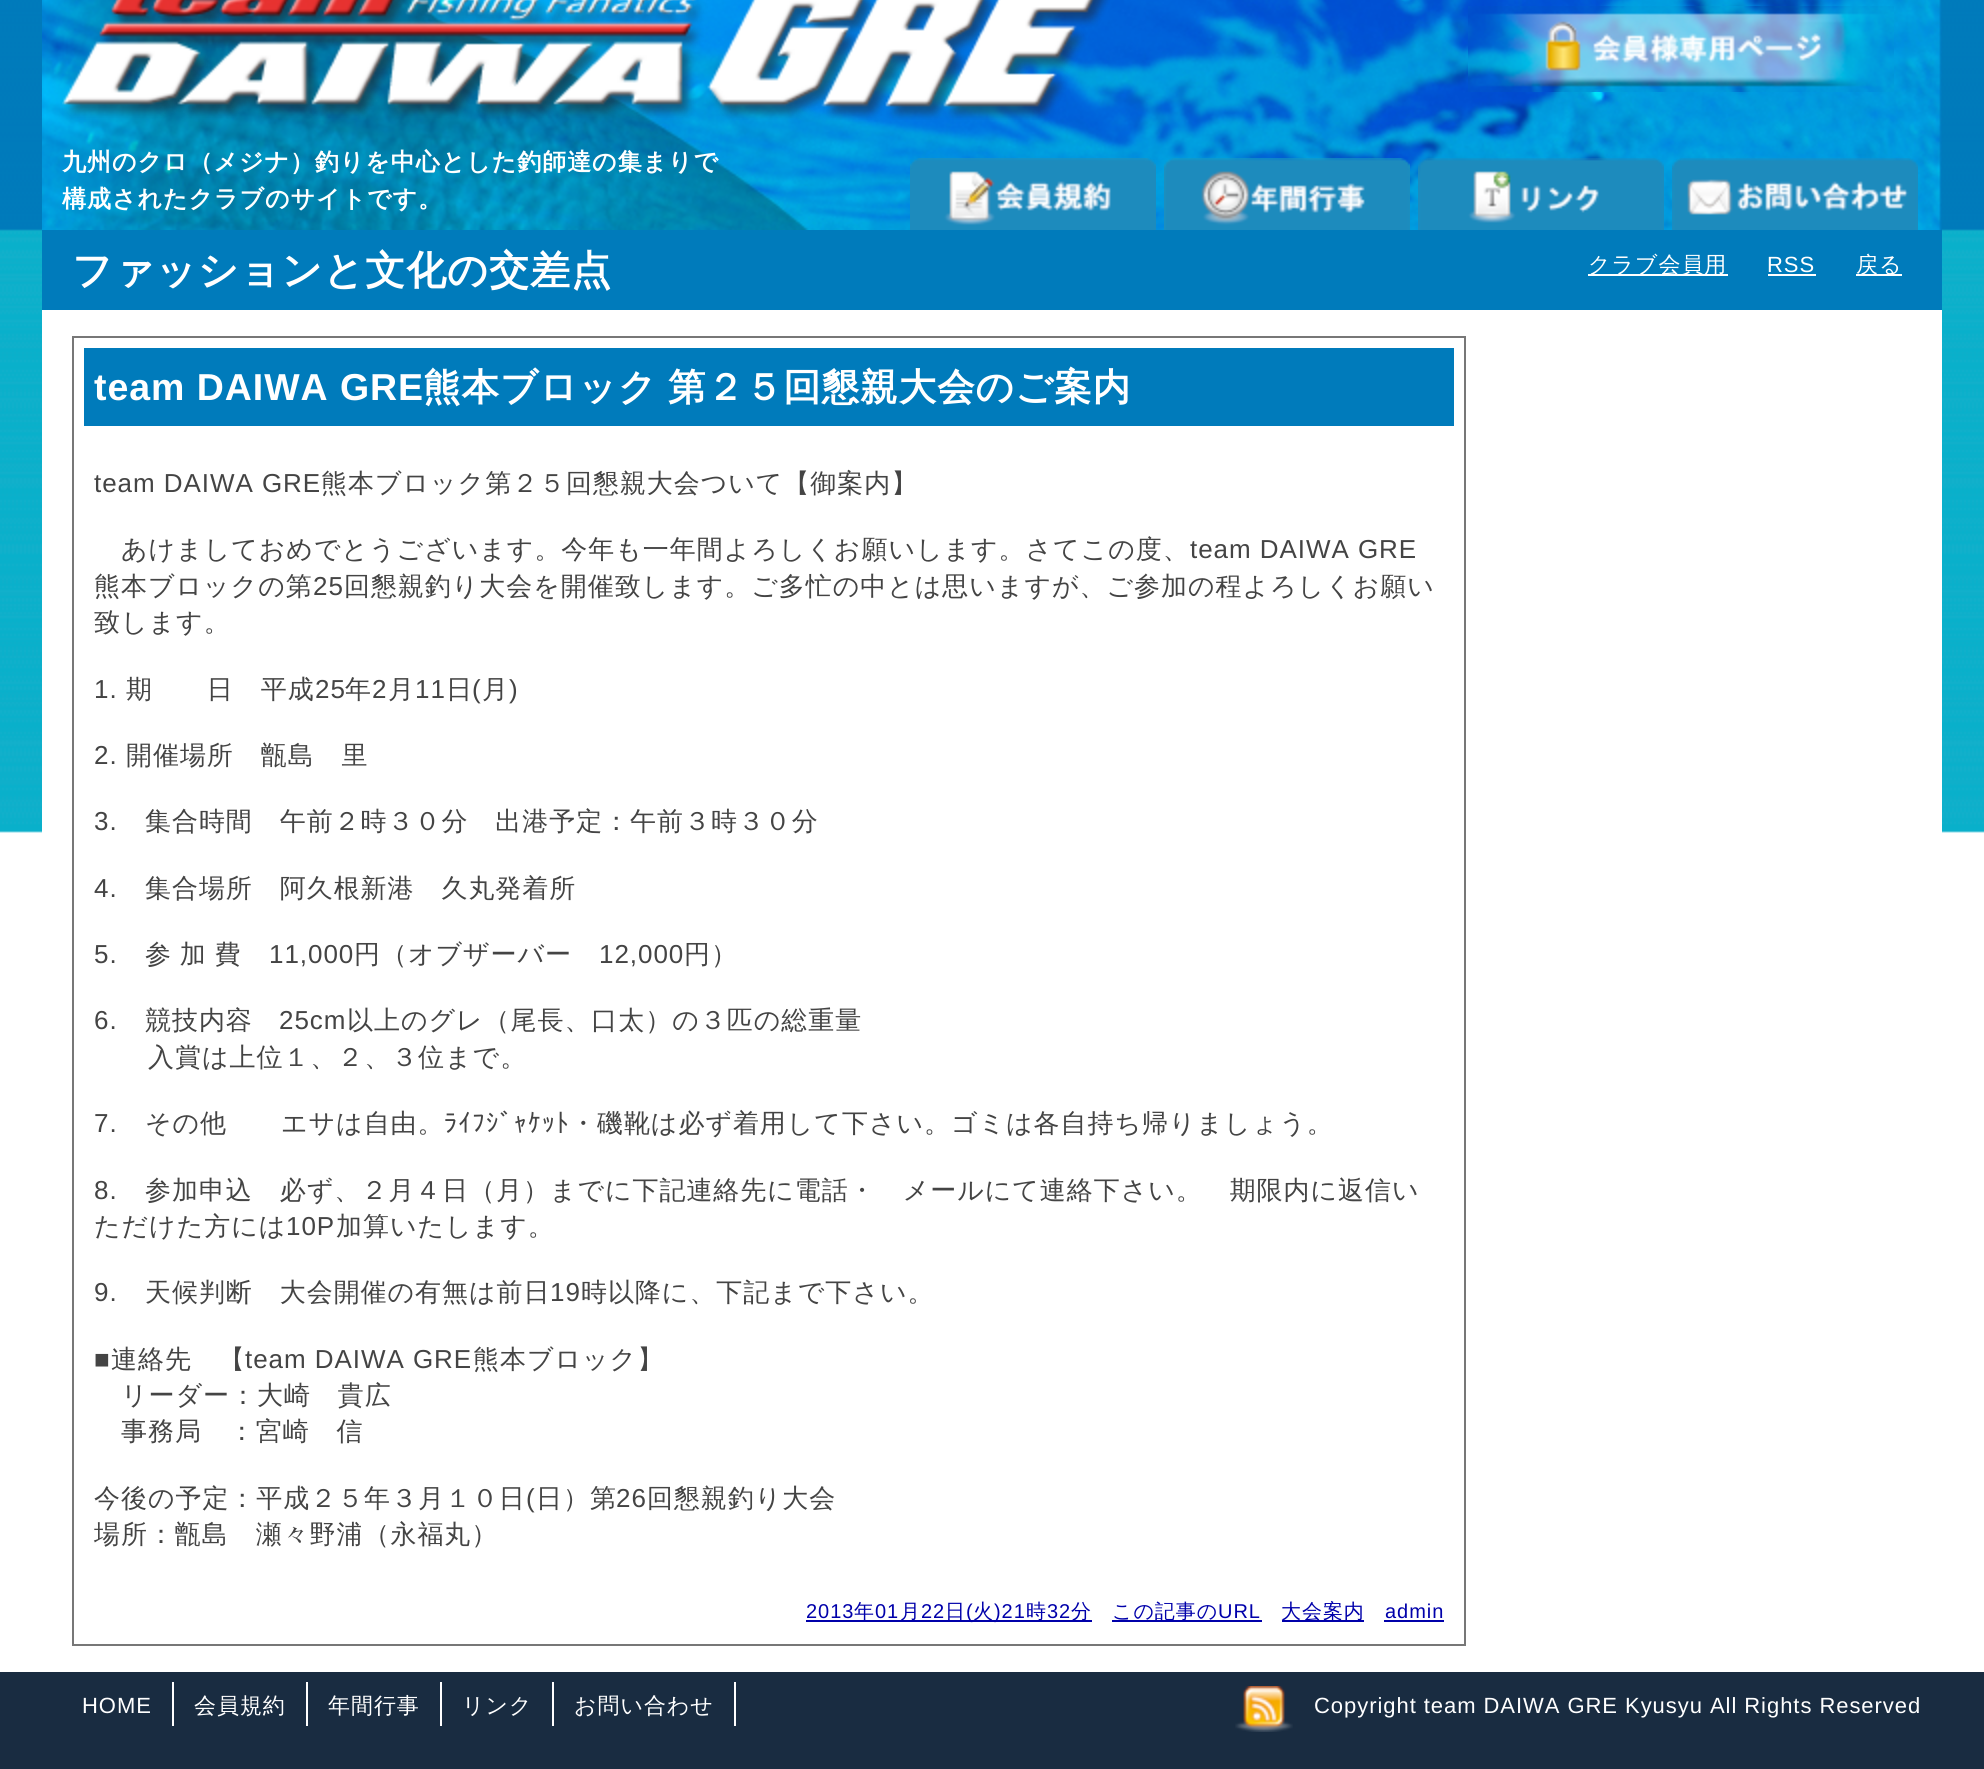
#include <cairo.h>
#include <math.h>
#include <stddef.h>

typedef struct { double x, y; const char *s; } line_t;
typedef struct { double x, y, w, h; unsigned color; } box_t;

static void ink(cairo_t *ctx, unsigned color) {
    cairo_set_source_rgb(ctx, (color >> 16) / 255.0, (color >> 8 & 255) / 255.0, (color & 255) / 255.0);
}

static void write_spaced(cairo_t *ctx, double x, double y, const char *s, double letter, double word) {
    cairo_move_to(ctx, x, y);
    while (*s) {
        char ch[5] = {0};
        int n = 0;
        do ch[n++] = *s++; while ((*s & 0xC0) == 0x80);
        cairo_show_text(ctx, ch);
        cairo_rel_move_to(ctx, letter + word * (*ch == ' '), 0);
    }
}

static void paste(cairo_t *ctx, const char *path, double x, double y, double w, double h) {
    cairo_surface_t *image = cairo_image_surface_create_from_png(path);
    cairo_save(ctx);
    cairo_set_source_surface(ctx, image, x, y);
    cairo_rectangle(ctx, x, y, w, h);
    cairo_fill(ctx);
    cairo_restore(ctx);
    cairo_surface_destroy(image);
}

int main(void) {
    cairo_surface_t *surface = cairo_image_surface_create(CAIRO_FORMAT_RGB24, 1984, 1769);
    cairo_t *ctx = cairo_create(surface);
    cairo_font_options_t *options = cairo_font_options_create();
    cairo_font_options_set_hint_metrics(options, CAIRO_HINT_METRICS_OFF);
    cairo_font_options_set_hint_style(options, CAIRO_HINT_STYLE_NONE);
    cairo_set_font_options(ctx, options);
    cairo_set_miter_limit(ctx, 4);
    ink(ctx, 0xFFFFFF);
    cairo_paint(ctx);
    paste(ctx, "media/1.png", 0, 0, 1984, 833);
    paste(ctx, "media/2.png", 42, 0, 1900, 230);
    paste(ctx, "media/3.png", 62, 0, 1048, 120);
    paste(ctx, "media/4.png", 1468, 6, 426, 86);
    cairo_select_font_face(ctx, "WenQuanYi Zen Hei", CAIRO_FONT_SLANT_NORMAL, CAIRO_FONT_WEIGHT_BOLD);
    cairo_set_font_size(ctx, 24);
    ink(ctx, 0xFFFFFF);
    write_spaced(ctx, 62, 170, "九州のクロ（メジナ）釣りを中心とした釣師達の集まりで", 0.95, 0);
    write_spaced(ctx, 62, 207, "構成されたクラブのサイトです。", 0.95, 0);
    paste(ctx, "media/5.png", 910, 158, 246, 72);
    paste(ctx, "media/6.png", 1164, 158, 246, 72);
    paste(ctx, "media/7.png", 1418, 158, 246, 72);
    paste(ctx, "media/8.png", 1672, 158, 246, 72);
    cairo_rectangle(ctx, 42, 310, 1900, 523);
    cairo_fill(ctx);
    ink(ctx, 0x007BBB);
    cairo_rectangle(ctx, 42, 230, 1900, 80);
    cairo_fill(ctx);
    cairo_set_font_size(ctx, 40);
    ink(ctx, 0xFFFFFF);
    write_spaced(ctx, 72, 284, "ファッションと文化の交差点", 0.95, 0);
    cairo_rectangle(ctx, 1588, 274, 140, 2);
    cairo_fill(ctx);
    cairo_select_font_face(ctx, "WenQuanYi Zen Hei Medium", CAIRO_FONT_SLANT_NORMAL, CAIRO_FONT_WEIGHT_NORMAL);
    cairo_set_font_size(ctx, 22);
    write_spaced(ctx, 1588, 272, "クラブ会員用", 0.95, 0);
    cairo_select_font_face(ctx, "Liberation Sans", CAIRO_FONT_SLANT_NORMAL, CAIRO_FONT_WEIGHT_NORMAL);
    write_spaced(ctx, 1767, 272, "RSS", 0.95, 0);
    cairo_rectangle(ctx, 1768, 274, 48, 2);
    cairo_fill(ctx);
    cairo_rectangle(ctx, 1856, 274, 46, 2);
    cairo_fill(ctx);
    cairo_select_font_face(ctx, "WenQuanYi Zen Hei Medium", CAIRO_FONT_SLANT_NORMAL, CAIRO_FONT_WEIGHT_NORMAL);
    write_spaced(ctx, 1856, 272, "戻る", 0.95, 0);
    cairo_rectangle(ctx, 73, 337, 1392, 1308);
    ink(ctx, 0x777777);
    cairo_stroke(ctx);
    ink(ctx, 0x007BBB);
    cairo_rectangle(ctx, 84, 348, 1370, 78);
    cairo_fill(ctx);
    cairo_select_font_face(ctx, "Liberation Sans", CAIRO_FONT_SLANT_NORMAL, CAIRO_FONT_WEIGHT_BOLD);
    cairo_set_font_size(ctx, 37.5);
    ink(ctx, 0xFFFFFF);
    write_spaced(ctx, 94, 400, "team DAIWA GRE", 0.95, 0);
    cairo_select_font_face(ctx, "WenQuanYi Zen Hei", CAIRO_FONT_SLANT_NORMAL, CAIRO_FONT_WEIGHT_BOLD);
    write_spaced(ctx, 423, 400, "熊本ブロック", 0.95, 0);
    write_spaced(ctx, 668, 400, "第２５回懇親大会のご案内", 0.95, 0);
    cairo_select_font_face(ctx, "Liberation Sans", CAIRO_FONT_SLANT_NORMAL, CAIRO_FONT_WEIGHT_NORMAL);
    cairo_set_font_size(ctx, 26);
    ink(ctx, 0x444444);
    write_spaced(ctx, 94, 492, "team DAIWA GRE", 0.95, 0);
    cairo_select_font_face(ctx, "WenQuanYi Zen Hei Medium", CAIRO_FONT_SLANT_NORMAL, CAIRO_FONT_WEIGHT_NORMAL);
    write_spaced(ctx, 321, 492, "熊本ブロック第２５回懇親大会ついて【御案内】", 0.95, 0);
    write_spaced(ctx, 121, 558, "あけましておめでとうございます。今年も一年間よろしくお願いします。さてこの度、", 0.95, 0);
    cairo_select_font_face(ctx, "Liberation Sans", CAIRO_FONT_SLANT_NORMAL, CAIRO_FONT_WEIGHT_NORMAL);
    write_spaced(ctx, 1190, 558, "team DAIWA GRE", 0.95, 0);
    cairo_select_font_face(ctx, "WenQuanYi Zen Hei Medium", CAIRO_FONT_SLANT_NORMAL, CAIRO_FONT_WEIGHT_NORMAL);
    write_spaced(ctx, 94, 595, "熊本ブロックの第", 0.95, 0);
    cairo_select_font_face(ctx, "Liberation Sans", CAIRO_FONT_SLANT_NORMAL, CAIRO_FONT_WEIGHT_NORMAL);
    write_spaced(ctx, 313, 595, "25", 0.95, 0);
    cairo_select_font_face(ctx, "WenQuanYi Zen Hei Medium", CAIRO_FONT_SLANT_NORMAL, CAIRO_FONT_WEIGHT_NORMAL);
    write_spaced(ctx, 344, 595, "回懇親釣り大会を開催致します。ご多忙の中とは思いますが、ご参加の程よろしくお願い", 0.95, 0);
    write_spaced(ctx, 94, 631, "致します。", 0.95, 0);
    cairo_select_font_face(ctx, "Liberation Sans", CAIRO_FONT_SLANT_NORMAL, CAIRO_FONT_WEIGHT_NORMAL);
    write_spaced(ctx, 94, 698, "1.", 0.95, 0);
    cairo_select_font_face(ctx, "WenQuanYi Zen Hei Medium", CAIRO_FONT_SLANT_NORMAL, CAIRO_FONT_WEIGHT_NORMAL);
    write_spaced(ctx, 126, 698, "期　　日　平成", 0.95, 0);
    cairo_select_font_face(ctx, "Liberation Sans", CAIRO_FONT_SLANT_NORMAL, CAIRO_FONT_WEIGHT_NORMAL);
    write_spaced(ctx, 315, 698, "25", 0.95, 0);
    cairo_select_font_face(ctx, "WenQuanYi Zen Hei Medium", CAIRO_FONT_SLANT_NORMAL, CAIRO_FONT_WEIGHT_NORMAL);
    write_spaced(ctx, 345, 698, "年", 0.95, 0);
    cairo_select_font_face(ctx, "Liberation Sans", CAIRO_FONT_SLANT_NORMAL, CAIRO_FONT_WEIGHT_NORMAL);
    write_spaced(ctx, 372, 698, "2", 0.95, 0);
    cairo_select_font_face(ctx, "WenQuanYi Zen Hei Medium", CAIRO_FONT_SLANT_NORMAL, CAIRO_FONT_WEIGHT_NORMAL);
    write_spaced(ctx, 388, 698, "月", 0.95, 0);
    cairo_select_font_face(ctx, "Liberation Sans", CAIRO_FONT_SLANT_NORMAL, CAIRO_FONT_WEIGHT_NORMAL);
    write_spaced(ctx, 415, 698, "11", 0.95, 0);
    cairo_select_font_face(ctx, "WenQuanYi Zen Hei Medium", CAIRO_FONT_SLANT_NORMAL, CAIRO_FONT_WEIGHT_NORMAL);
    write_spaced(ctx, 446, 698, "日", 0.95, 0);
    cairo_select_font_face(ctx, "Liberation Sans", CAIRO_FONT_SLANT_NORMAL, CAIRO_FONT_WEIGHT_NORMAL);
    write_spaced(ctx, 472, 698, "(", 0.95, 0);
    cairo_select_font_face(ctx, "WenQuanYi Zen Hei Medium", CAIRO_FONT_SLANT_NORMAL, CAIRO_FONT_WEIGHT_NORMAL);
    write_spaced(ctx, 482, 698, "月", 0.95, 0);
    cairo_select_font_face(ctx, "Liberation Sans", CAIRO_FONT_SLANT_NORMAL, CAIRO_FONT_WEIGHT_NORMAL);
    write_spaced(ctx, 509, 698, ")", 0.95, 0);
    write_spaced(ctx, 94, 764, "2.", 0.95, 0);
    cairo_select_font_face(ctx, "WenQuanYi Zen Hei Medium", CAIRO_FONT_SLANT_NORMAL, CAIRO_FONT_WEIGHT_NORMAL);
    write_spaced(ctx, 126, 764, "開催場所　甑島　里", 0.95, 0);
    cairo_select_font_face(ctx, "Liberation Sans", CAIRO_FONT_SLANT_NORMAL, CAIRO_FONT_WEIGHT_NORMAL);
    write_spaced(ctx, 94, 830, "3.", 0.95, 0);
    cairo_select_font_face(ctx, "WenQuanYi Zen Hei Medium", CAIRO_FONT_SLANT_NORMAL, CAIRO_FONT_WEIGHT_NORMAL);
    write_spaced(ctx, 145, 830, "集合時間　午前２時３０分　出港予定：午前３時３０分", 0.95, 0);
    cairo_select_font_face(ctx, "Liberation Sans", CAIRO_FONT_SLANT_NORMAL, CAIRO_FONT_WEIGHT_NORMAL);
    write_spaced(ctx, 94, 897, "4.", 0.95, 0);
    cairo_select_font_face(ctx, "WenQuanYi Zen Hei Medium", CAIRO_FONT_SLANT_NORMAL, CAIRO_FONT_WEIGHT_NORMAL);
    write_spaced(ctx, 145, 897, "集合場所　阿久根新港　久丸発着所", 0.95, 0);
    cairo_select_font_face(ctx, "Liberation Sans", CAIRO_FONT_SLANT_NORMAL, CAIRO_FONT_WEIGHT_NORMAL);
    write_spaced(ctx, 94, 963, "5.", 0.95, 0);
    cairo_select_font_face(ctx, "WenQuanYi Zen Hei Medium", CAIRO_FONT_SLANT_NORMAL, CAIRO_FONT_WEIGHT_NORMAL);
    write_spaced(ctx, 145, 963, "参 加 費", 0.95, -1);
    cairo_select_font_face(ctx, "Liberation Sans", CAIRO_FONT_SLANT_NORMAL, CAIRO_FONT_WEIGHT_NORMAL);
    write_spaced(ctx, 269, 963, "11,000", 0.95, 0);
    cairo_select_font_face(ctx, "WenQuanYi Zen Hei Medium", CAIRO_FONT_SLANT_NORMAL, CAIRO_FONT_WEIGHT_NORMAL);
    write_spaced(ctx, 354, 963, "円（オブザーバー", 0.95, 0);
    cairo_select_font_face(ctx, "Liberation Sans", CAIRO_FONT_SLANT_NORMAL, CAIRO_FONT_WEIGHT_NORMAL);
    write_spaced(ctx, 599, 963, "12,000", 0.95, 0);
    cairo_select_font_face(ctx, "WenQuanYi Zen Hei Medium", CAIRO_FONT_SLANT_NORMAL, CAIRO_FONT_WEIGHT_NORMAL);
    write_spaced(ctx, 684, 963, "円）", 0.95, 0);
    cairo_select_font_face(ctx, "Liberation Sans", CAIRO_FONT_SLANT_NORMAL, CAIRO_FONT_WEIGHT_NORMAL);
    write_spaced(ctx, 94, 1029, "6.", 0.95, 0);
    cairo_select_font_face(ctx, "WenQuanYi Zen Hei Medium", CAIRO_FONT_SLANT_NORMAL, CAIRO_FONT_WEIGHT_NORMAL);
    write_spaced(ctx, 145, 1029, "競技内容", 0.95, 0);
    cairo_select_font_face(ctx, "Liberation Sans", CAIRO_FONT_SLANT_NORMAL, CAIRO_FONT_WEIGHT_NORMAL);
    write_spaced(ctx, 279, 1029, "25cm", 0.95, 0);
    cairo_select_font_face(ctx, "WenQuanYi Zen Hei Medium", CAIRO_FONT_SLANT_NORMAL, CAIRO_FONT_WEIGHT_NORMAL);
    write_spaced(ctx, 347, 1029, "以上のグレ（尾長、口太）の３匹の総重量", 0.95, 0);
    write_spaced(ctx, 148, 1066, "入賞は上位１、２、３位まで。", 0.95, 0);
    cairo_select_font_face(ctx, "Liberation Sans", CAIRO_FONT_SLANT_NORMAL, CAIRO_FONT_WEIGHT_NORMAL);
    write_spaced(ctx, 94, 1132, "7.", 0.95, 0);
    cairo_select_font_face(ctx, "WenQuanYi Zen Hei Medium", CAIRO_FONT_SLANT_NORMAL, CAIRO_FONT_WEIGHT_NORMAL);
    write_spaced(ctx, 145, 1132, "その他　　エサは自由。", 0.95, 0);
    cairo_select_font_face(ctx, "IPAPGothic", CAIRO_FONT_SLANT_NORMAL, CAIRO_FONT_WEIGHT_NORMAL);
    write_spaced(ctx, 444, 1132, "ﾗｲﾌｼﾞｬｹｯﾄ", 0.95, 0);
    cairo_select_font_face(ctx, "WenQuanYi Zen Hei Medium", CAIRO_FONT_SLANT_NORMAL, CAIRO_FONT_WEIGHT_NORMAL);
    write_spaced(ctx, 570, 1132, "・磯靴は必ず着用して下さい。ゴミは各自持ち帰りましょう。", 0.95, 0);
    cairo_select_font_face(ctx, "Liberation Sans", CAIRO_FONT_SLANT_NORMAL, CAIRO_FONT_WEIGHT_NORMAL);
    write_spaced(ctx, 94, 1199, "8.", 0.95, 0);
    cairo_select_font_face(ctx, "WenQuanYi Zen Hei Medium", CAIRO_FONT_SLANT_NORMAL, CAIRO_FONT_WEIGHT_NORMAL);
    write_spaced(ctx, 145, 1199, "参加申込　必ず、２月４日（月）までに下記連絡先に電話・　メールにて連絡下さい。　期限内に返信い", 0.95, 0);
    write_spaced(ctx, 94, 1235, "ただけた方には", 0.95, 0);
    cairo_select_font_face(ctx, "Liberation Sans", CAIRO_FONT_SLANT_NORMAL, CAIRO_FONT_WEIGHT_NORMAL);
    write_spaced(ctx, 286, 1235, "10P", 0.95, 0);
    cairo_select_font_face(ctx, "WenQuanYi Zen Hei Medium", CAIRO_FONT_SLANT_NORMAL, CAIRO_FONT_WEIGHT_NORMAL);
    write_spaced(ctx, 336, 1235, "加算いたします。", 0.95, 0);
    cairo_select_font_face(ctx, "Liberation Sans", CAIRO_FONT_SLANT_NORMAL, CAIRO_FONT_WEIGHT_NORMAL);
    write_spaced(ctx, 94, 1301, "9.", 0.95, 0);
    cairo_select_font_face(ctx, "WenQuanYi Zen Hei Medium", CAIRO_FONT_SLANT_NORMAL, CAIRO_FONT_WEIGHT_NORMAL);
    write_spaced(ctx, 145, 1301, "天候判断　大会開催の有無は前日", 0.95, 0);
    cairo_select_font_face(ctx, "Liberation Sans", CAIRO_FONT_SLANT_NORMAL, CAIRO_FONT_WEIGHT_NORMAL);
    write_spaced(ctx, 550, 1301, "19", 0.95, 0);
    cairo_select_font_face(ctx, "WenQuanYi Zen Hei Medium", CAIRO_FONT_SLANT_NORMAL, CAIRO_FONT_WEIGHT_NORMAL);
    write_spaced(ctx, 581, 1301, "時以降に、下記まで下さい。", 0.95, 0);
    cairo_select_font_face(ctx, "Liberation Sans", CAIRO_FONT_SLANT_NORMAL, CAIRO_FONT_WEIGHT_NORMAL);
    write_spaced(ctx, 94, 1368, "■", 0.95, 0);
    cairo_select_font_face(ctx, "WenQuanYi Zen Hei Medium", CAIRO_FONT_SLANT_NORMAL, CAIRO_FONT_WEIGHT_NORMAL);
    write_spaced(ctx, 111, 1368, "連絡先　【", 0.95, 0);
    cairo_select_font_face(ctx, "Liberation Sans", CAIRO_FONT_SLANT_NORMAL, CAIRO_FONT_WEIGHT_NORMAL);
    write_spaced(ctx, 245, 1368, "team DAIWA GRE", 0.95, 0);
    cairo_select_font_face(ctx, "WenQuanYi Zen Hei Medium", CAIRO_FONT_SLANT_NORMAL, CAIRO_FONT_WEIGHT_NORMAL);
    {
        static const line_t items[] = {
            {473, 1368, "熊本ブロック】"},
            {121, 1404, "リーダー：大崎　貴広"},
            {121, 1440, "事務局　：宮崎　信"},
            {94, 1507, "今後の予定：平成２５年３月１０日"},
        };
        for (size_t i = 0; i < sizeof items / sizeof *items; i++) {
            write_spaced(ctx, items[i].x, items[i].y, items[i].s, 0.95, 0);
        }
    }
    cairo_select_font_face(ctx, "Liberation Sans", CAIRO_FONT_SLANT_NORMAL, CAIRO_FONT_WEIGHT_NORMAL);
    write_spaced(ctx, 526, 1507, "(", 0.95, 0);
    cairo_select_font_face(ctx, "WenQuanYi Zen Hei Medium", CAIRO_FONT_SLANT_NORMAL, CAIRO_FONT_WEIGHT_NORMAL);
    write_spaced(ctx, 536, 1507, "日）第", 0.95, 0);
    cairo_select_font_face(ctx, "Liberation Sans", CAIRO_FONT_SLANT_NORMAL, CAIRO_FONT_WEIGHT_NORMAL);
    write_spaced(ctx, 616, 1507, "26", 0.95, 0);
    cairo_select_font_face(ctx, "WenQuanYi Zen Hei Medium", CAIRO_FONT_SLANT_NORMAL, CAIRO_FONT_WEIGHT_NORMAL);
    write_spaced(ctx, 647, 1507, "回懇親釣り大会", 0.95, 0);
    write_spaced(ctx, 94, 1543, "場所：甑島　瀬々野浦（永福丸）", 0.95, 0);
    cairo_select_font_face(ctx, "Liberation Sans", CAIRO_FONT_SLANT_NORMAL, CAIRO_FONT_WEIGHT_NORMAL);
    cairo_set_font_size(ctx, 20);
    ink(ctx, 0x0000AA);
    write_spaced(ctx, 806, 1618, "2013", 0.95, 0);
    cairo_rectangle(ctx, 806, 1620, 286, 2);
    cairo_fill(ctx);
    cairo_select_font_face(ctx, "WenQuanYi Zen Hei Medium", CAIRO_FONT_SLANT_NORMAL, CAIRO_FONT_WEIGHT_NORMAL);
    write_spaced(ctx, 854, 1618, "年", 0.95, 0);
    cairo_select_font_face(ctx, "Liberation Sans", CAIRO_FONT_SLANT_NORMAL, CAIRO_FONT_WEIGHT_NORMAL);
    write_spaced(ctx, 875, 1618, "01", 0.95, 0);
    cairo_select_font_face(ctx, "WenQuanYi Zen Hei Medium", CAIRO_FONT_SLANT_NORMAL, CAIRO_FONT_WEIGHT_NORMAL);
    write_spaced(ctx, 900, 1618, "月", 0.95, 0);
    cairo_select_font_face(ctx, "Liberation Sans", CAIRO_FONT_SLANT_NORMAL, CAIRO_FONT_WEIGHT_NORMAL);
    write_spaced(ctx, 921, 1618, "22", 0.95, 0);
    cairo_select_font_face(ctx, "WenQuanYi Zen Hei Medium", CAIRO_FONT_SLANT_NORMAL, CAIRO_FONT_WEIGHT_NORMAL);
    write_spaced(ctx, 945, 1618, "日", 0.95, 0);
    cairo_select_font_face(ctx, "Liberation Sans", CAIRO_FONT_SLANT_NORMAL, CAIRO_FONT_WEIGHT_NORMAL);
    write_spaced(ctx, 966, 1618, "(", 0.95, 0);
    cairo_select_font_face(ctx, "WenQuanYi Zen Hei Medium", CAIRO_FONT_SLANT_NORMAL, CAIRO_FONT_WEIGHT_NORMAL);
    write_spaced(ctx, 973, 1618, "火", 0.95, 0);
    cairo_select_font_face(ctx, "Liberation Sans", CAIRO_FONT_SLANT_NORMAL, CAIRO_FONT_WEIGHT_NORMAL);
    write_spaced(ctx, 994, 1618, ")21", 0.95, 0);
    cairo_select_font_face(ctx, "WenQuanYi Zen Hei Medium", CAIRO_FONT_SLANT_NORMAL, CAIRO_FONT_WEIGHT_NORMAL);
    write_spaced(ctx, 1026, 1618, "時", 0.95, 0);
    cairo_select_font_face(ctx, "Liberation Sans", CAIRO_FONT_SLANT_NORMAL, CAIRO_FONT_WEIGHT_NORMAL);
    write_spaced(ctx, 1047, 1618, "32", 0.95, 0);
    cairo_select_font_face(ctx, "WenQuanYi Zen Hei Medium", CAIRO_FONT_SLANT_NORMAL, CAIRO_FONT_WEIGHT_NORMAL);
    write_spaced(ctx, 1071, 1618, "分", 0.95, 0);
    cairo_rectangle(ctx, 1112, 1620, 150, 2);
    cairo_fill(ctx);
    write_spaced(ctx, 1112, 1618, "この記事の", 0.95, 0);
    cairo_select_font_face(ctx, "Liberation Sans", CAIRO_FONT_SLANT_NORMAL, CAIRO_FONT_WEIGHT_NORMAL);
    write_spaced(ctx, 1218, 1618, "URL", 0.95, 0);
    cairo_rectangle(ctx, 1282, 1620, 82, 2);
    cairo_fill(ctx);
    cairo_select_font_face(ctx, "WenQuanYi Zen Hei Medium", CAIRO_FONT_SLANT_NORMAL, CAIRO_FONT_WEIGHT_NORMAL);
    write_spaced(ctx, 1281, 1618, "大会案内", 0.95, 0);
    cairo_select_font_face(ctx, "Liberation Sans", CAIRO_FONT_SLANT_NORMAL, CAIRO_FONT_WEIGHT_NORMAL);
    write_spaced(ctx, 1385, 1618, "admin", 0.95, 0);
    {
        static const box_t items[] = {
            {1384, 1620, 60, 2, 0x0000AA},
            {0, 1672, 1984, 97, 0x192C41},
            {172, 1682, 2, 44, 0xFFFFFF},
        };
        for (size_t i = 0; i < sizeof items / sizeof *items; i++) {
            ink(ctx, items[i].color);
            cairo_rectangle(ctx, items[i].x, items[i].y, items[i].w, items[i].h);
            cairo_fill(ctx);
        }
    }
    cairo_set_font_size(ctx, 22);
    write_spaced(ctx, 82, 1713, "HOME", 0.95, 0);
    cairo_rectangle(ctx, 306, 1682, 2, 44);
    cairo_fill(ctx);
    cairo_select_font_face(ctx, "WenQuanYi Zen Hei Medium", CAIRO_FONT_SLANT_NORMAL, CAIRO_FONT_WEIGHT_NORMAL);
    write_spaced(ctx, 194, 1713, "会員規約", 0.95, 0);
    cairo_rectangle(ctx, 440, 1682, 2, 44);
    cairo_fill(ctx);
    write_spaced(ctx, 328, 1713, "年間行事", 0.95, 0);
    cairo_rectangle(ctx, 552, 1682, 2, 44);
    cairo_fill(ctx);
    write_spaced(ctx, 462, 1713, "リンク", 0.95, 0);
    cairo_rectangle(ctx, 734, 1682, 2, 44);
    cairo_fill(ctx);
    write_spaced(ctx, 574, 1713, "お問い合わせ", 0.95, 0);
    paste(ctx, "media/9.png", 1235, 1686, 58, 46);
    cairo_select_font_face(ctx, "Liberation Sans", CAIRO_FONT_SLANT_NORMAL, CAIRO_FONT_WEIGHT_NORMAL);
    write_spaced(ctx, 1314, 1713, "Copyright team DAIWA GRE Kyusyu All Rights Reserved", 0.95, 0);
    cairo_surface_write_to_png(surface, "image.png");
    cairo_font_options_destroy(options);
    cairo_destroy(ctx);
    cairo_surface_destroy(surface);
    return 0;
}
